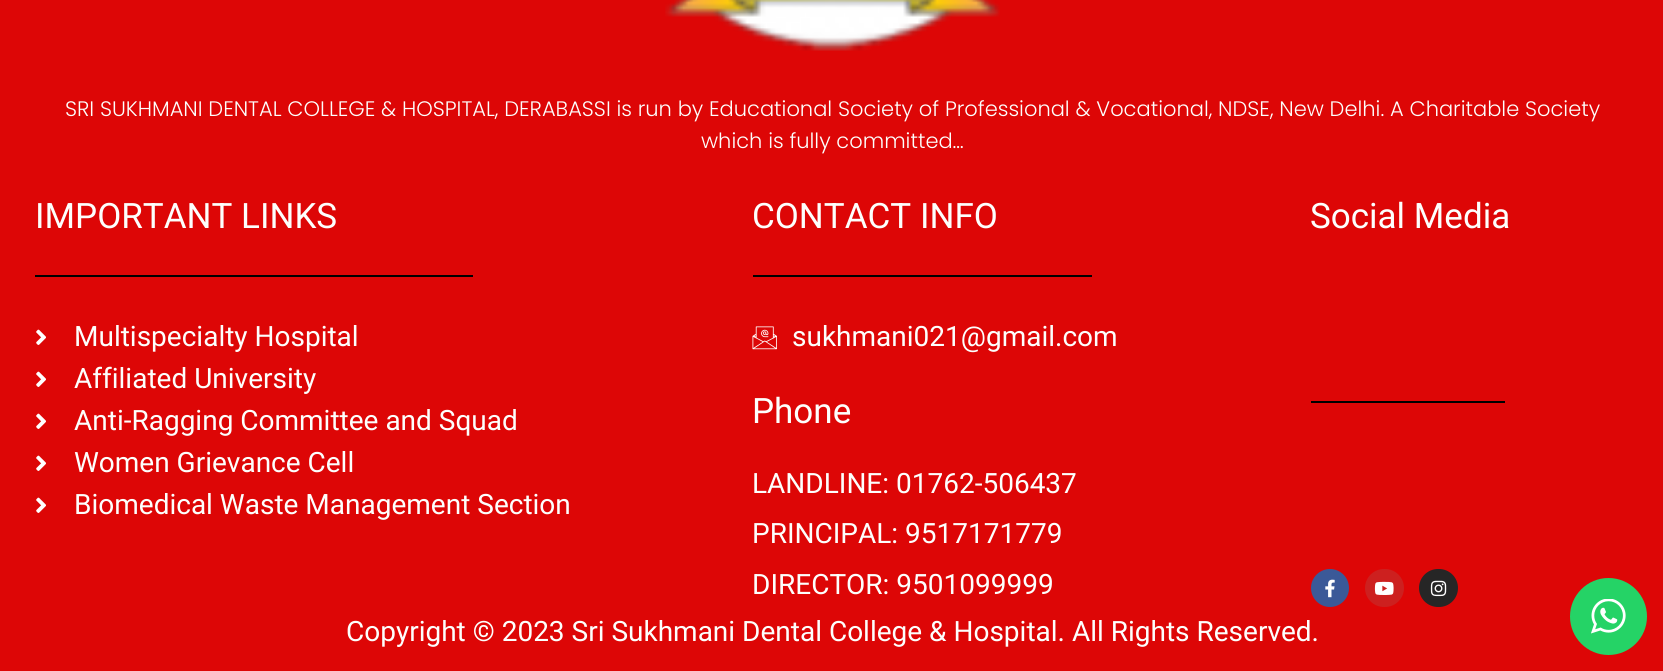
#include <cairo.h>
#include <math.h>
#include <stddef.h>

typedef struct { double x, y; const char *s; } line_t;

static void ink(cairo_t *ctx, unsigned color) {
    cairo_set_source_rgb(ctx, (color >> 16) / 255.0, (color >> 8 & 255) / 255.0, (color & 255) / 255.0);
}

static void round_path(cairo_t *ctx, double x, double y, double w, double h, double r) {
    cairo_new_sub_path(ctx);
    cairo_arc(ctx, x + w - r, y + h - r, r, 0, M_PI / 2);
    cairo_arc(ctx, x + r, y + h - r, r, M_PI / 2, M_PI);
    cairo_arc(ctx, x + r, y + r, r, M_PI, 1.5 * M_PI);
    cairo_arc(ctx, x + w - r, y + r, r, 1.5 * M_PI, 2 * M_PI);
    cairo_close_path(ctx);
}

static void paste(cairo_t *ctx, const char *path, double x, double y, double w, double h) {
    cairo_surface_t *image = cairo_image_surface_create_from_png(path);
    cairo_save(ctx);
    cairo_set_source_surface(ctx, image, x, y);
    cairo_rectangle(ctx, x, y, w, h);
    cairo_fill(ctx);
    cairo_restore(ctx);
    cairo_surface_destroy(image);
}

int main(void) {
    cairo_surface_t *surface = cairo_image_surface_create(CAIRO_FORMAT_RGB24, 1663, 671);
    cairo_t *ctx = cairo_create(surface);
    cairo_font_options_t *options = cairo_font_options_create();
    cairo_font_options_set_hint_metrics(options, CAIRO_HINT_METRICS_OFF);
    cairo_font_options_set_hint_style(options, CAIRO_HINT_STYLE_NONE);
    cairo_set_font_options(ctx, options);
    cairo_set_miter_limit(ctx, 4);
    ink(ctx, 0xDD0606);
    cairo_paint(ctx);
    paste(ctx, "media/1.png", 665, 0, 335, 51);
    cairo_select_font_face(ctx, "Poppins Light", CAIRO_FONT_SLANT_NORMAL, CAIRO_FONT_WEIGHT_NORMAL);
    cairo_set_font_size(ctx, 21);
    ink(ctx, 0xFDFFFD);
    cairo_move_to(ctx, 65, 116);
    cairo_show_text(ctx, "SRI SUKHMANI DENTAL COLLEGE & HOSPITAL, DERABASSI is run by Educational Society of Professional & Vocational, NDSE, New Delhi. A Charitable Society");
    cairo_move_to(ctx, 701, 148);
    cairo_show_text(ctx, "which is fully committed…");
    cairo_select_font_face(ctx, "Roboto", CAIRO_FONT_SLANT_NORMAL, CAIRO_FONT_WEIGHT_NORMAL);
    cairo_set_font_size(ctx, 35);
    cairo_move_to(ctx, 35, 228);
    cairo_show_text(ctx, "IMPORTANT LINKS");
    ink(ctx, 0x000000);
    cairo_rectangle(ctx, 35, 275, 438, 2);
    cairo_fill(ctx);
    paste(ctx, "media/2.png", 36, 329, 10, 16);
    cairo_set_font_size(ctx, 28);
    ink(ctx, 0xFDFFFD);
    cairo_move_to(ctx, 74, 346);
    cairo_show_text(ctx, "Multispecialty Hospital");
    paste(ctx, "media/2.png", 36, 371, 10, 16);
    cairo_move_to(ctx, 74, 388);
    cairo_show_text(ctx, "Affiliated University");
    paste(ctx, "media/2.png", 36, 413, 10, 16);
    cairo_move_to(ctx, 74, 430);
    cairo_show_text(ctx, "Anti-Ragging Committee and Squad");
    paste(ctx, "media/2.png", 36, 455, 10, 16);
    cairo_move_to(ctx, 74, 472);
    cairo_show_text(ctx, "Women Grievance Cell");
    paste(ctx, "media/2.png", 36, 497, 10, 16);
    cairo_move_to(ctx, 74, 514);
    cairo_show_text(ctx, "Biomedical Waste Management Section");
    cairo_set_font_size(ctx, 35);
    cairo_move_to(ctx, 752, 228);
    cairo_show_text(ctx, "CONTACT INFO");
    ink(ctx, 0x000000);
    cairo_rectangle(ctx, 753, 275, 339, 2);
    cairo_fill(ctx);
    paste(ctx, "media/3.png", 752, 326, 25, 24);
    cairo_set_font_size(ctx, 28);
    ink(ctx, 0xFDFFFD);
    cairo_move_to(ctx, 792, 346);
    cairo_show_text(ctx, "sukhmani021@gmail.com");
    cairo_set_font_size(ctx, 35);
    cairo_move_to(ctx, 752, 423);
    cairo_show_text(ctx, "Phone");
    cairo_set_font_size(ctx, 28);
    {
        static const line_t items[] = {
            {752, 493, "LANDLINE: 01762-506437"},
            {752, 543, "PRINCIPAL: 9517171779"},
            {752, 594, "DIRECTOR: 9501099999"},
        };
        for (size_t i = 0; i < sizeof items / sizeof *items; i++) {
            cairo_move_to(ctx, items[i].x, items[i].y);
            cairo_show_text(ctx, items[i].s);
        }
    }
    cairo_set_font_size(ctx, 35);
    cairo_move_to(ctx, 1310, 228);
    cairo_show_text(ctx, "Social Media");
    ink(ctx, 0x000000);
    cairo_rectangle(ctx, 1311, 401, 194, 2);
    cairo_fill(ctx);
    ink(ctx, 0x3B5998);
    cairo_arc(ctx, 1330, 588, 19, 0, 2 * M_PI);
    cairo_fill(ctx);
    paste(ctx, "media/4.png", 1325, 579, 10, 19);
    ink(ctx, 0xCD201F);
    round_path(ctx, 1365, 569, 39, 38, 19);
    cairo_fill(ctx);
    paste(ctx, "media/5.png", 1374, 581, 20, 14);
    ink(ctx, 0x262626);
    round_path(ctx, 1419, 569, 39, 38, 19);
    cairo_fill(ctx);
    paste(ctx, "media/6.png", 1430, 580, 17, 17);
    cairo_set_font_size(ctx, 28);
    ink(ctx, 0xFDFFFD);
    cairo_move_to(ctx, 346, 641);
    cairo_show_text(ctx, "Copyright © 2023 Sri Sukhmani Dental College & Hospital. All Rights Reserved.");
    ink(ctx, 0x25D366);
    cairo_new_path(ctx);
    cairo_arc(ctx, 1608.5, 616.5, 38.5, 0, 2 * M_PI);
    cairo_fill(ctx);
    paste(ctx, "media/7.png", 1591, 599, 35, 35);
    cairo_surface_write_to_png(surface, "image.png");
    cairo_font_options_destroy(options);
    cairo_destroy(ctx);
    cairo_surface_destroy(surface);
    return 0;
}
